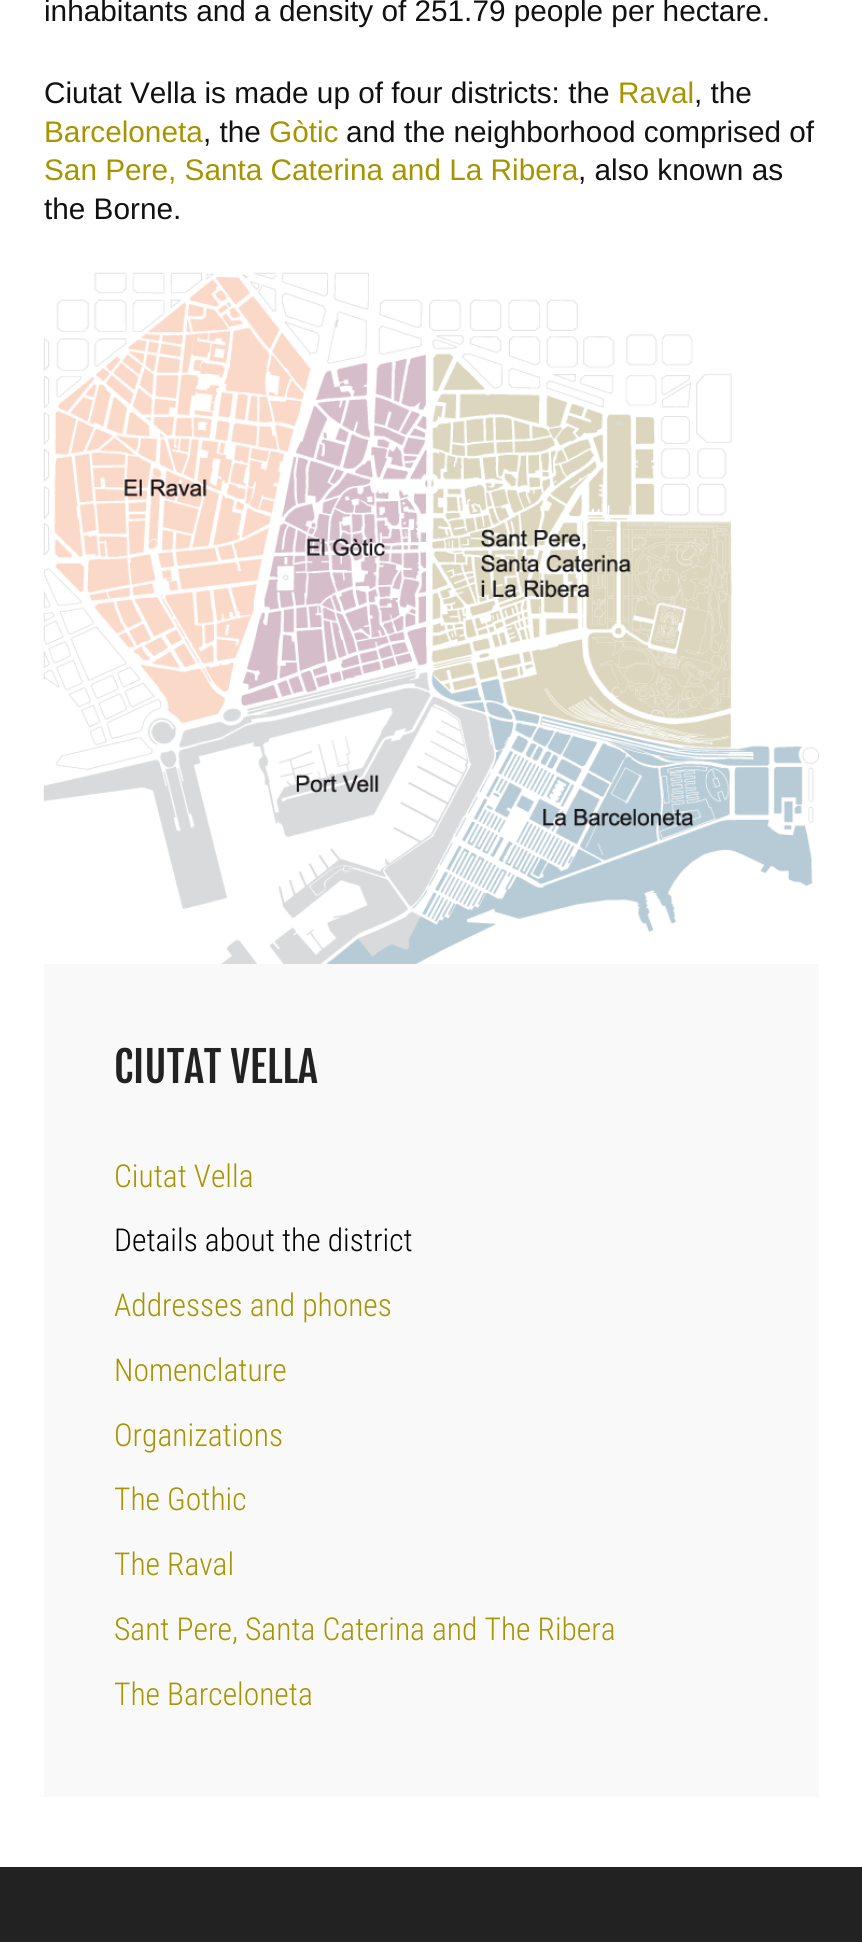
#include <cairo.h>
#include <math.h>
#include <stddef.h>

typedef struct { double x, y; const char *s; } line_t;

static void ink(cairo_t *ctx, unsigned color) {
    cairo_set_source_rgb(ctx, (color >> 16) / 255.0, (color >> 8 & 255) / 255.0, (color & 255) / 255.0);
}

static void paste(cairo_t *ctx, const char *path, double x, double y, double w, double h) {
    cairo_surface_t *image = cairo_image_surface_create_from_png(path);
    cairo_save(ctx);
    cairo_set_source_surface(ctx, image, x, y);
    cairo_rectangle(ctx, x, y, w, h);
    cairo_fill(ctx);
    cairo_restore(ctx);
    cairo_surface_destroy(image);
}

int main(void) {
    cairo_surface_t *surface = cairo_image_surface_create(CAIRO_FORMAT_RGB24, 862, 1942);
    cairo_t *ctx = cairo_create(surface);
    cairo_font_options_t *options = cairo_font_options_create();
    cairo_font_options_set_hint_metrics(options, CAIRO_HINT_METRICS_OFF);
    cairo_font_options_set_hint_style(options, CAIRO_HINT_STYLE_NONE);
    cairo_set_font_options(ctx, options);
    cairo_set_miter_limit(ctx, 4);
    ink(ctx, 0x222222);
    cairo_paint(ctx);
    ink(ctx, 0xFFFFFF);
    cairo_rectangle(ctx, 0, 0, 862, 1867);
    cairo_fill(ctx);
    cairo_select_font_face(ctx, "Liberation Sans", CAIRO_FONT_SLANT_NORMAL, CAIRO_FONT_WEIGHT_NORMAL);
    cairo_set_font_size(ctx, 29.75);
    ink(ctx, 0x111111);
    cairo_move_to(ctx, 44, 21);
    cairo_show_text(ctx, "inhabitants and a density of 251.79 people per hectare.");
    cairo_move_to(ctx, 44, 103);
    cairo_show_text(ctx, "Ciutat Vella is made up of four districts: the");
    ink(ctx, 0xA69400);
    cairo_move_to(ctx, 618, 103);
    cairo_show_text(ctx, "Raval");
    ink(ctx, 0x111111);
    cairo_move_to(ctx, 694, 103);
    cairo_show_text(ctx, ", the");
    ink(ctx, 0xA69400);
    cairo_move_to(ctx, 44, 142);
    cairo_show_text(ctx, "Barceloneta");
    ink(ctx, 0x111111);
    cairo_move_to(ctx, 203, 142);
    cairo_show_text(ctx, ", the");
    ink(ctx, 0xA69400);
    cairo_move_to(ctx, 269, 142);
    cairo_show_text(ctx, "Gòtic");
    ink(ctx, 0x111111);
    cairo_move_to(ctx, 346, 142);
    cairo_show_text(ctx, "and the neighborhood comprised of");
    ink(ctx, 0xA69400);
    cairo_move_to(ctx, 44, 180);
    cairo_show_text(ctx, "San Pere, Santa Caterina and La Ribera");
    ink(ctx, 0x111111);
    cairo_move_to(ctx, 578, 180);
    cairo_show_text(ctx, ", also known as");
    cairo_move_to(ctx, 44, 219);
    cairo_show_text(ctx, "the Borne.");
    paste(ctx, "media/1.png", 43, 272, 776, 692);
    ink(ctx, 0xF9F9F9);
    cairo_rectangle(ctx, 44, 964, 775, 833);
    cairo_fill(ctx);
    cairo_select_font_face(ctx, "Fjalla One", CAIRO_FONT_SLANT_NORMAL, CAIRO_FONT_WEIGHT_NORMAL);
    cairo_set_font_size(ctx, 42);
    ink(ctx, 0x222222);
    cairo_move_to(ctx, 114, 1083);
    cairo_show_text(ctx, "CIUTAT VELLA");
    cairo_select_font_face(ctx, "Roboto Condensed Light", CAIRO_FONT_SLANT_NORMAL, CAIRO_FONT_WEIGHT_NORMAL);
    cairo_set_font_size(ctx, 31.5);
    ink(ctx, 0xA69400);
    cairo_move_to(ctx, 114, 1187);
    cairo_show_text(ctx, "Ciutat Vella");
    ink(ctx, 0x000000);
    cairo_move_to(ctx, 114, 1251);
    cairo_show_text(ctx, "Details about the district");
    ink(ctx, 0xA69400);
    {
        static const line_t items[] = {
            {114, 1316, "Addresses and phones"},
            {114, 1381, "Nomenclature"},
            {114, 1446, "Organizations"},
            {114, 1510, "The Gothic"},
            {114, 1575, "The Raval"},
            {114, 1640, "Sant Pere, Santa Caterina and The Ribera"},
            {114, 1705, "The Barceloneta"},
        };
        for (size_t i = 0; i < sizeof items / sizeof *items; i++) {
            cairo_move_to(ctx, items[i].x, items[i].y);
            cairo_show_text(ctx, items[i].s);
        }
    }
    cairo_surface_write_to_png(surface, "image.png");
    cairo_font_options_destroy(options);
    cairo_destroy(ctx);
    cairo_surface_destroy(surface);
    return 0;
}
